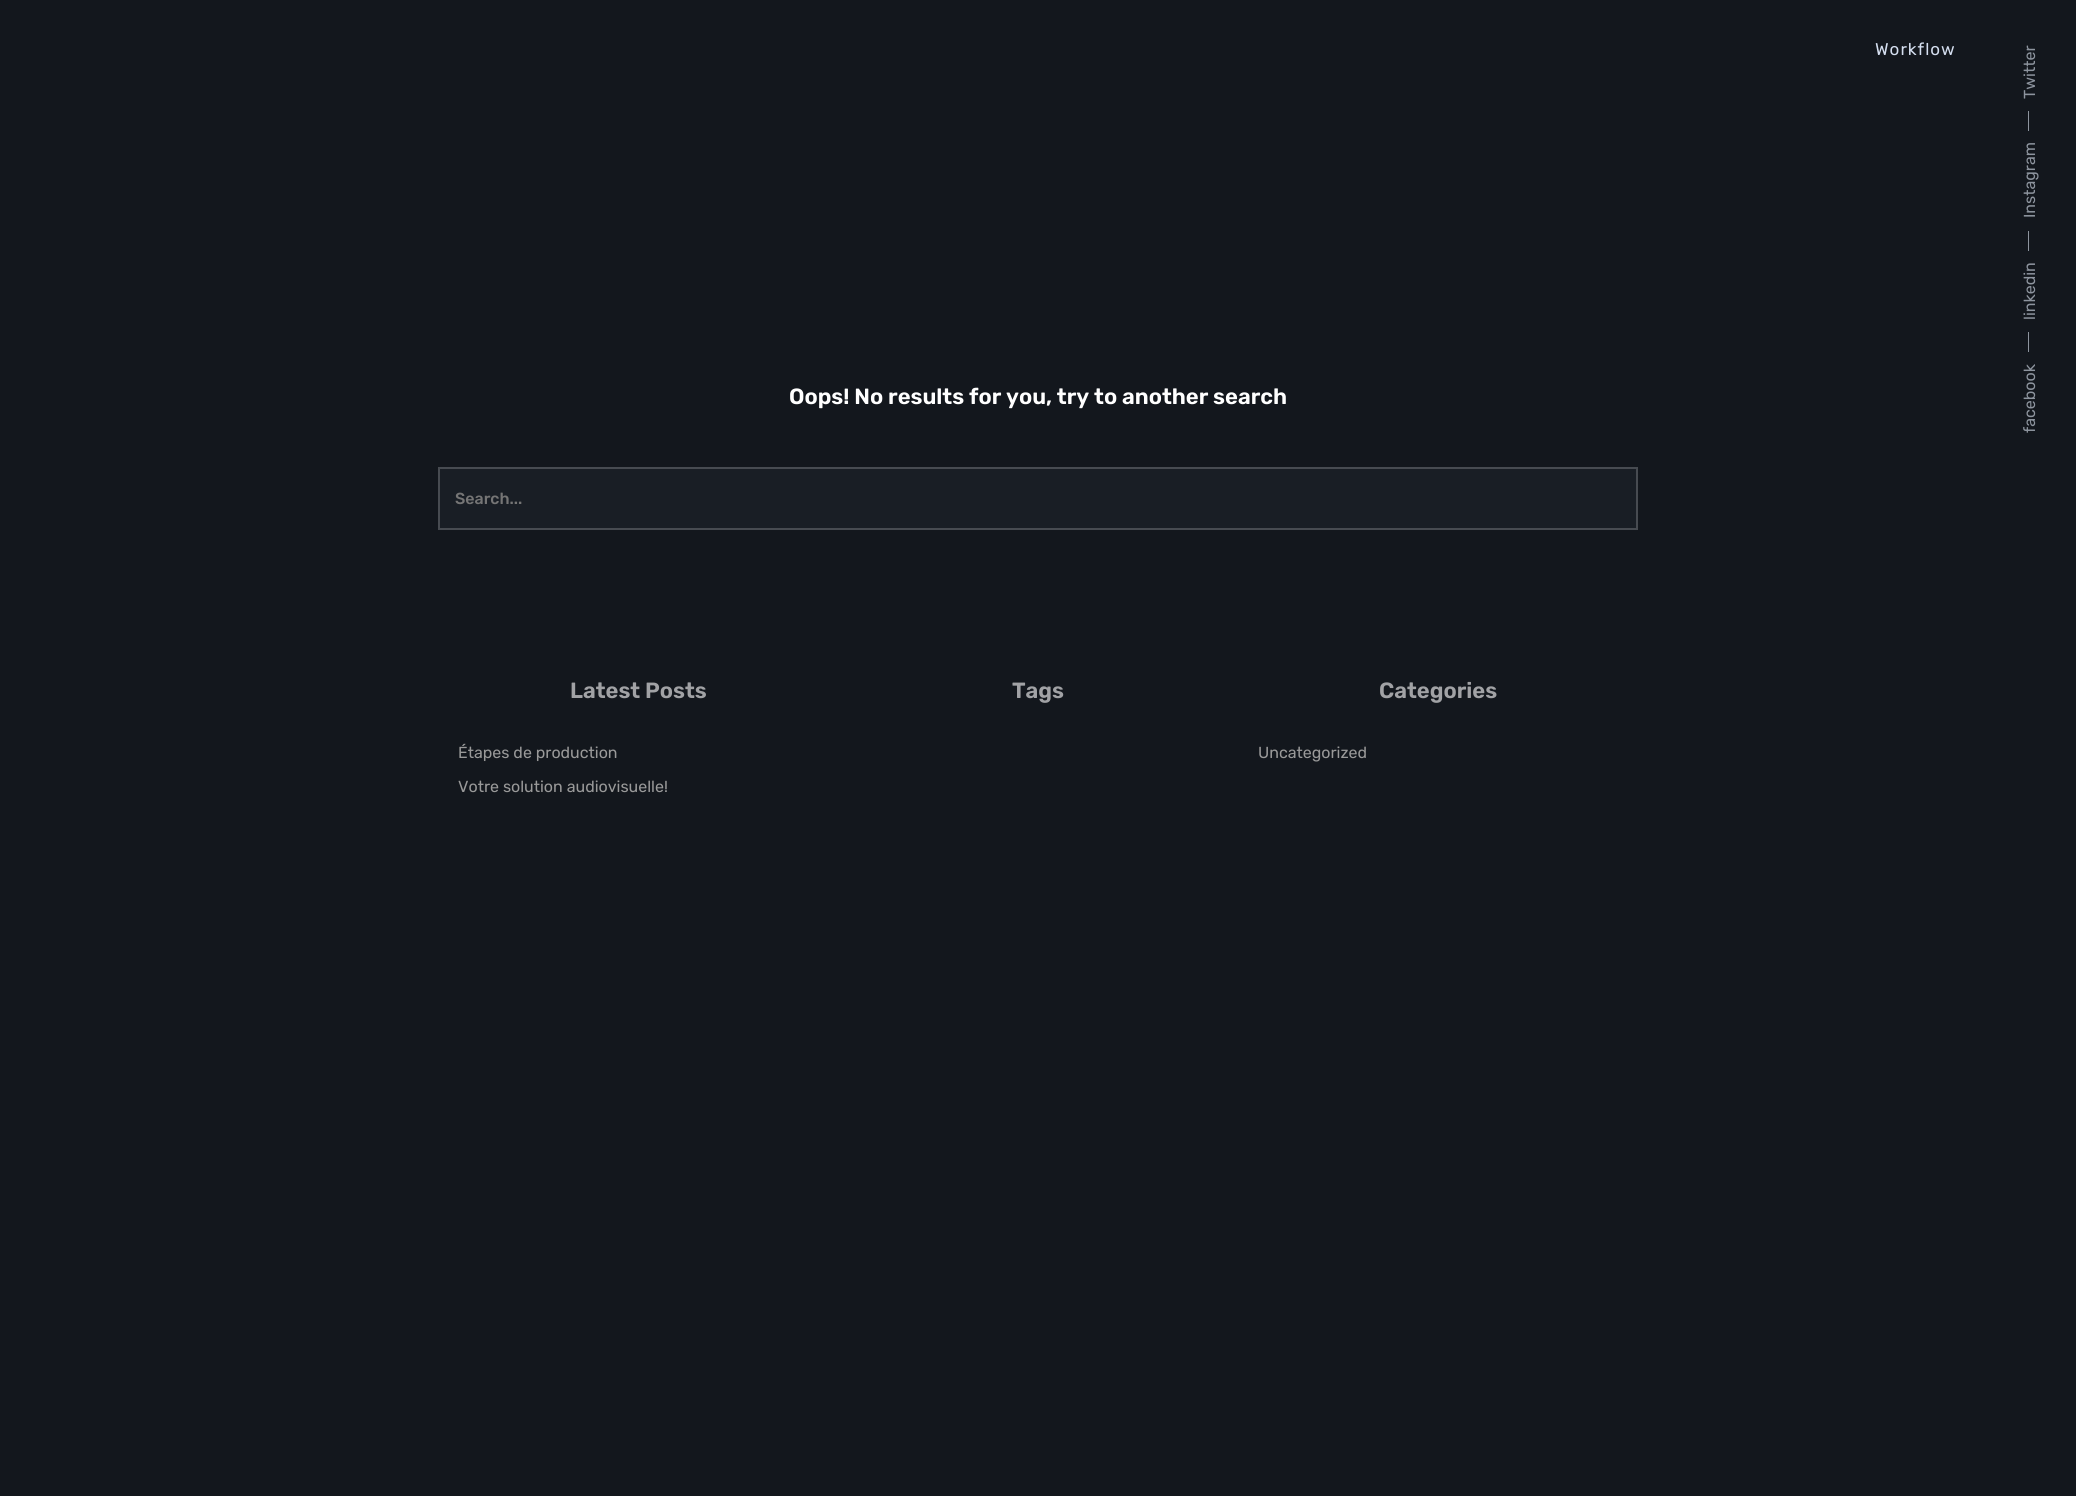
#include <cairo.h>
#include <math.h>
#include <stddef.h>


static void ink(cairo_t *ctx, unsigned color) {
    cairo_set_source_rgb(ctx, (color >> 16) / 255.0, (color >> 8 & 255) / 255.0, (color & 255) / 255.0);
}

static void write_spaced(cairo_t *ctx, double x, double y, const char *s, double letter, double word) {
    cairo_move_to(ctx, x, y);
    while (*s) {
        char ch[5] = {0};
        int n = 0;
        do ch[n++] = *s++; while ((*s & 0xC0) == 0x80);
        cairo_show_text(ctx, ch);
        cairo_rel_move_to(ctx, letter + word * (*ch == ' '), 0);
    }
}

int main(void) {
    cairo_surface_t *surface = cairo_image_surface_create(CAIRO_FORMAT_RGB24, 2076, 1496);
    cairo_t *ctx = cairo_create(surface);
    cairo_font_options_t *options = cairo_font_options_create();
    cairo_font_options_set_hint_metrics(options, CAIRO_HINT_METRICS_OFF);
    cairo_font_options_set_hint_style(options, CAIRO_HINT_STYLE_NONE);
    cairo_set_font_options(ctx, options);
    cairo_set_miter_limit(ctx, 4);
    ink(ctx, 0x13171D);
    cairo_paint(ctx);
    cairo_select_font_face(ctx, "Rubik", CAIRO_FONT_SLANT_NORMAL, CAIRO_FONT_WEIGHT_NORMAL);
    cairo_set_font_size(ctx, 17);
    ink(ctx, 0xD4DEEF);
    write_spaced(ctx, 1875, 55, "Workflow", 1, 0);
    cairo_set_font_size(ctx, 16);
    ink(ctx, 0x8D949E);
    cairo_save(ctx);
    cairo_translate(ctx, 2035, 99);
    cairo_rotate(ctx, -90 * M_PI / 180);
    cairo_move_to(ctx, 0, 0);
    cairo_show_text(ctx, "Twitter");
    cairo_restore(ctx);
    cairo_rectangle(ctx, 2028, 111, 1, 20);
    cairo_fill(ctx);
    cairo_save(ctx);
    cairo_translate(ctx, 2035, 218);
    cairo_rotate(ctx, -90 * M_PI / 180);
    cairo_move_to(ctx, 0, 0);
    cairo_show_text(ctx, "Instagram");
    cairo_restore(ctx);
    cairo_rectangle(ctx, 2028, 231, 1, 20);
    cairo_fill(ctx);
    cairo_save(ctx);
    cairo_translate(ctx, 2035, 320);
    cairo_rotate(ctx, -90 * M_PI / 180);
    cairo_move_to(ctx, 0, 0);
    cairo_show_text(ctx, "linkedin");
    cairo_restore(ctx);
    cairo_rectangle(ctx, 2028, 332, 1, 20);
    cairo_fill(ctx);
    cairo_save(ctx);
    cairo_translate(ctx, 2035, 433);
    cairo_rotate(ctx, -90 * M_PI / 180);
    cairo_move_to(ctx, 0, 0);
    cairo_show_text(ctx, "facebook");
    cairo_restore(ctx);
    cairo_select_font_face(ctx, "Rubik SemiBold", CAIRO_FONT_SLANT_NORMAL, CAIRO_FONT_WEIGHT_NORMAL);
    cairo_set_font_size(ctx, 22);
    ink(ctx, 0xFFFFFF);
    cairo_move_to(ctx, 789, 404);
    cairo_show_text(ctx, "Oops! No results for you, try to another search");
    ink(ctx, 0x191E25);
    cairo_rectangle(ctx, 439, 468, 1198, 61);
    cairo_fill_preserve(ctx);
    ink(ctx, 0x474B51);
    cairo_stroke(ctx);
    cairo_select_font_face(ctx, "Rubik Medium", CAIRO_FONT_SLANT_NORMAL, CAIRO_FONT_WEIGHT_NORMAL);
    cairo_set_font_size(ctx, 16);
    ink(ctx, 0x757575);
    cairo_move_to(ctx, 455, 504);
    cairo_show_text(ctx, "Search...");
    cairo_select_font_face(ctx, "Rubik SemiBold", CAIRO_FONT_SLANT_NORMAL, CAIRO_FONT_WEIGHT_NORMAL);
    cairo_set_font_size(ctx, 22);
    ink(ctx, 0xA1A2A5);
    cairo_move_to(ctx, 570, 698);
    cairo_show_text(ctx, "Latest Posts");
    cairo_select_font_face(ctx, "Rubik", CAIRO_FONT_SLANT_NORMAL, CAIRO_FONT_WEIGHT_NORMAL);
    cairo_set_font_size(ctx, 16);
    ink(ctx, 0x999999);
    cairo_move_to(ctx, 458, 758);
    cairo_show_text(ctx, "Étapes de production");
    cairo_move_to(ctx, 458, 792);
    cairo_show_text(ctx, "Votre solution audiovisuelle!");
    cairo_select_font_face(ctx, "Rubik SemiBold", CAIRO_FONT_SLANT_NORMAL, CAIRO_FONT_WEIGHT_NORMAL);
    cairo_set_font_size(ctx, 22);
    ink(ctx, 0xA1A2A5);
    cairo_move_to(ctx, 1012, 698);
    cairo_show_text(ctx, "Tags");
    cairo_move_to(ctx, 1379, 698);
    cairo_show_text(ctx, "Categories");
    cairo_select_font_face(ctx, "Rubik", CAIRO_FONT_SLANT_NORMAL, CAIRO_FONT_WEIGHT_NORMAL);
    cairo_set_font_size(ctx, 16);
    ink(ctx, 0x999999);
    cairo_move_to(ctx, 1258, 758);
    cairo_show_text(ctx, "Uncategorized");
    cairo_surface_write_to_png(surface, "image.png");
    cairo_font_options_destroy(options);
    cairo_destroy(ctx);
    cairo_surface_destroy(surface);
    return 0;
}
